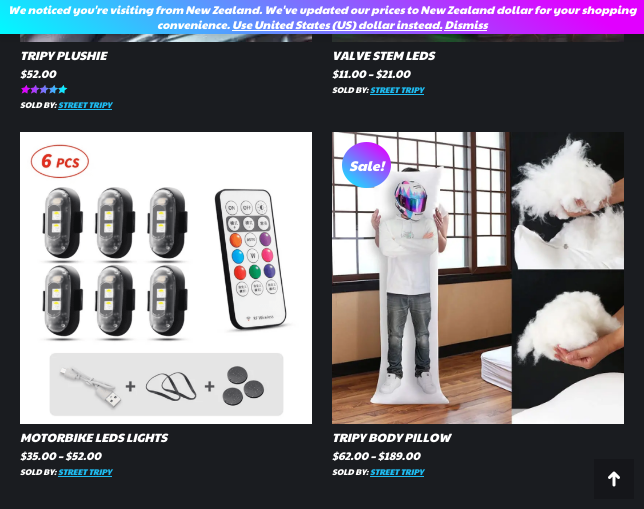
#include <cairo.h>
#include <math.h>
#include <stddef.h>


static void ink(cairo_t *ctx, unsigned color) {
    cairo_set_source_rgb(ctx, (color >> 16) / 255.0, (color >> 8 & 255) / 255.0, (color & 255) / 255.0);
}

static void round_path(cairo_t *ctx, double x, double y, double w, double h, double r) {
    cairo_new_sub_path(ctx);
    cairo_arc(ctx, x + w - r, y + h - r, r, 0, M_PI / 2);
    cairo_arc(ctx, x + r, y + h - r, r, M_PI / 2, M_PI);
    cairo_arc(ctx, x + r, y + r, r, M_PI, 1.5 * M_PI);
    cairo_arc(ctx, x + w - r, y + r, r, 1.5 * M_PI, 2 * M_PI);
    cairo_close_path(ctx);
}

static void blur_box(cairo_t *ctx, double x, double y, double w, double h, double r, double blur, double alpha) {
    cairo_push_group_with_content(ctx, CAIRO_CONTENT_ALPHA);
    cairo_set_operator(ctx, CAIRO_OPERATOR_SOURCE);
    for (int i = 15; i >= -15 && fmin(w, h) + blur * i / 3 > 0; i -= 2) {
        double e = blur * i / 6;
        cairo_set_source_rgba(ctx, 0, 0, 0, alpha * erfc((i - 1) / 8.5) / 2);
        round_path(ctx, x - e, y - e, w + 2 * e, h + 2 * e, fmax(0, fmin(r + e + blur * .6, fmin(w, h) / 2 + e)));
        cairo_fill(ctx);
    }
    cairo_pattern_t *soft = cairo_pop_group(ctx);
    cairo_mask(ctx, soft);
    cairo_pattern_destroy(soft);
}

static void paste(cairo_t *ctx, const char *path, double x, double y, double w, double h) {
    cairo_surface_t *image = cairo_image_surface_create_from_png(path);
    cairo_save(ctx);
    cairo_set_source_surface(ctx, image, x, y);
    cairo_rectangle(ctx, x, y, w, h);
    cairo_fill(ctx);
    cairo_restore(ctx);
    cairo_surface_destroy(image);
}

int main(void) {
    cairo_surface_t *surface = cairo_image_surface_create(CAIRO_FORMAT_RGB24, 644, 509);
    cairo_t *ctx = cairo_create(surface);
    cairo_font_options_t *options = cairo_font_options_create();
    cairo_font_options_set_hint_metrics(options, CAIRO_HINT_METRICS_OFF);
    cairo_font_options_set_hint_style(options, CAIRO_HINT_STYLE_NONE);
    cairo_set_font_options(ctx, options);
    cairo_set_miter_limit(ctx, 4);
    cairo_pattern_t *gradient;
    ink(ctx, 0x1A1C20);
    cairo_paint(ctx);
    paste(ctx, "media/1.png", 20, 34, 292, 8);
    paste(ctx, "media/4.png", 332, 34, 292, 8);
    ink(ctx, 0x000000);
    blur_box(ctx, 0, 1, 644, 34, 0, 5.5, 0.2);
    gradient = cairo_pattern_create_linear(441, -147, 203, 181);
    cairo_pattern_add_color_stop_rgba(gradient, 0.1, 0.882, 0, 1, 1);
    cairo_pattern_add_color_stop_rgba(gradient, 1, 0, 0.98, 1, 1);
    cairo_set_source(ctx, gradient);
    cairo_pattern_destroy(gradient);
    cairo_rectangle(ctx, 0, 0, 644, 34);
    cairo_fill(ctx);
    cairo_select_font_face(ctx, "Paytone One", CAIRO_FONT_SLANT_ITALIC, CAIRO_FONT_WEIGHT_NORMAL);
    cairo_set_font_size(ctx, 11.2);
    ink(ctx, 0xFFFFFF);
    cairo_move_to(ctx, 8, 14);
    cairo_show_text(ctx, "We noticed you're visiting from New Zealand. We've updated our prices to New Zealand dollar for your shopping");
    cairo_move_to(ctx, 157, 29);
    cairo_show_text(ctx, "convenience.");
    cairo_rectangle(ctx, 232, 30, 210, 1);
    cairo_fill(ctx);
    cairo_move_to(ctx, 232, 29);
    cairo_show_text(ctx, "Use United States (US) dollar instead. Dismiss");
    cairo_rectangle(ctx, 444, 30, 43, 1);
    cairo_fill(ctx);
    cairo_set_font_size(ctx, 12);
    cairo_move_to(ctx, 20, 60);
    cairo_show_text(ctx, "TRIPY PLUSHIE");
    cairo_set_font_size(ctx, 11);
    cairo_move_to(ctx, 20, 78);
    cairo_show_text(ctx, "$52.00");
    paste(ctx, "media/2.png", 21, 85, 46, 9);
    paste(ctx, "media/3.png", 21, 85, 47, 9);
    cairo_set_font_size(ctx, 8.25);
    cairo_move_to(ctx, 20, 108);
    cairo_show_text(ctx, "SOLD BY:");
    ink(ctx, 0x1EBBF0);
    cairo_move_to(ctx, 58, 108);
    cairo_show_text(ctx, "STREET TRIPY");
    cairo_rectangle(ctx, 58, 109, 54, 1);
    cairo_fill(ctx);
    cairo_set_font_size(ctx, 12);
    ink(ctx, 0xFFFFFF);
    cairo_move_to(ctx, 332, 60);
    cairo_show_text(ctx, "VALVE STEM LEDS");
    cairo_set_font_size(ctx, 11);
    cairo_move_to(ctx, 332, 78);
    cairo_show_text(ctx, "$11.00 – $21.00");
    cairo_set_font_size(ctx, 8.25);
    cairo_move_to(ctx, 332, 93);
    cairo_show_text(ctx, "SOLD BY:");
    ink(ctx, 0x1EBBF0);
    cairo_move_to(ctx, 370, 93);
    cairo_show_text(ctx, "STREET TRIPY");
    cairo_rectangle(ctx, 370, 94, 54, 1);
    cairo_fill(ctx);
    paste(ctx, "media/5.png", 20, 132, 292, 292);
    cairo_set_font_size(ctx, 12);
    ink(ctx, 0xFFFFFF);
    cairo_move_to(ctx, 20, 442);
    cairo_show_text(ctx, "MOTORBIKE LEDS LIGHTS");
    cairo_set_font_size(ctx, 11);
    cairo_move_to(ctx, 20, 460);
    cairo_show_text(ctx, "$35.00 – $52.00");
    cairo_set_font_size(ctx, 8.25);
    cairo_move_to(ctx, 20, 475);
    cairo_show_text(ctx, "SOLD BY:");
    ink(ctx, 0x1EBBF0);
    cairo_move_to(ctx, 58, 475);
    cairo_show_text(ctx, "STREET TRIPY");
    cairo_rectangle(ctx, 58, 476, 54, 1);
    cairo_fill(ctx);
    paste(ctx, "media/6.png", 332, 132, 292, 292);
    gradient = cairo_pattern_create_linear(386, 138, 347, 192);
    cairo_pattern_add_color_stop_rgba(gradient, 0.1, 0.882, 0, 1, 1);
    cairo_pattern_add_color_stop_rgba(gradient, 1, 0, 0.98, 1, 1);
    cairo_set_source(ctx, gradient);
    cairo_pattern_destroy(gradient);
    cairo_new_path(ctx);
    cairo_move_to(ctx, 366.5, 142);
    cairo_curve_to(ctx, 380, 142, 391, 152.5, 391, 165);
    cairo_curve_to(ctx, 391, 177.5, 380, 188, 366.5, 188);
    cairo_curve_to(ctx, 353, 188, 342, 177.5, 342, 165);
    cairo_curve_to(ctx, 342, 152.5, 353, 142, 366.5, 142);
    cairo_close_path(ctx);
    cairo_fill(ctx);
    cairo_set_font_size(ctx, 14);
    ink(ctx, 0xFFFFFF);
    cairo_move_to(ctx, 349, 171);
    cairo_show_text(ctx, "Sale!");
    cairo_set_font_size(ctx, 12);
    cairo_move_to(ctx, 332, 442);
    cairo_show_text(ctx, "TRIPY BODY PILLOW");
    cairo_set_font_size(ctx, 11);
    cairo_move_to(ctx, 332, 460);
    cairo_show_text(ctx, "$62.00 – $189.00");
    cairo_set_font_size(ctx, 8.25);
    cairo_move_to(ctx, 332, 475);
    cairo_show_text(ctx, "SOLD BY:");
    ink(ctx, 0x1EBBF0);
    cairo_move_to(ctx, 370, 475);
    cairo_show_text(ctx, "STREET TRIPY");
    cairo_rectangle(ctx, 370, 476, 54, 1);
    cairo_fill(ctx);
    ink(ctx, 0x15161A);
    cairo_rectangle(ctx, 594, 459, 40, 40);
    cairo_fill(ctx);
    paste(ctx, "media/7.png", 608, 471, 12, 16);
    cairo_surface_write_to_png(surface, "image.png");
    cairo_font_options_destroy(options);
    cairo_destroy(ctx);
    cairo_surface_destroy(surface);
    return 0;
}
